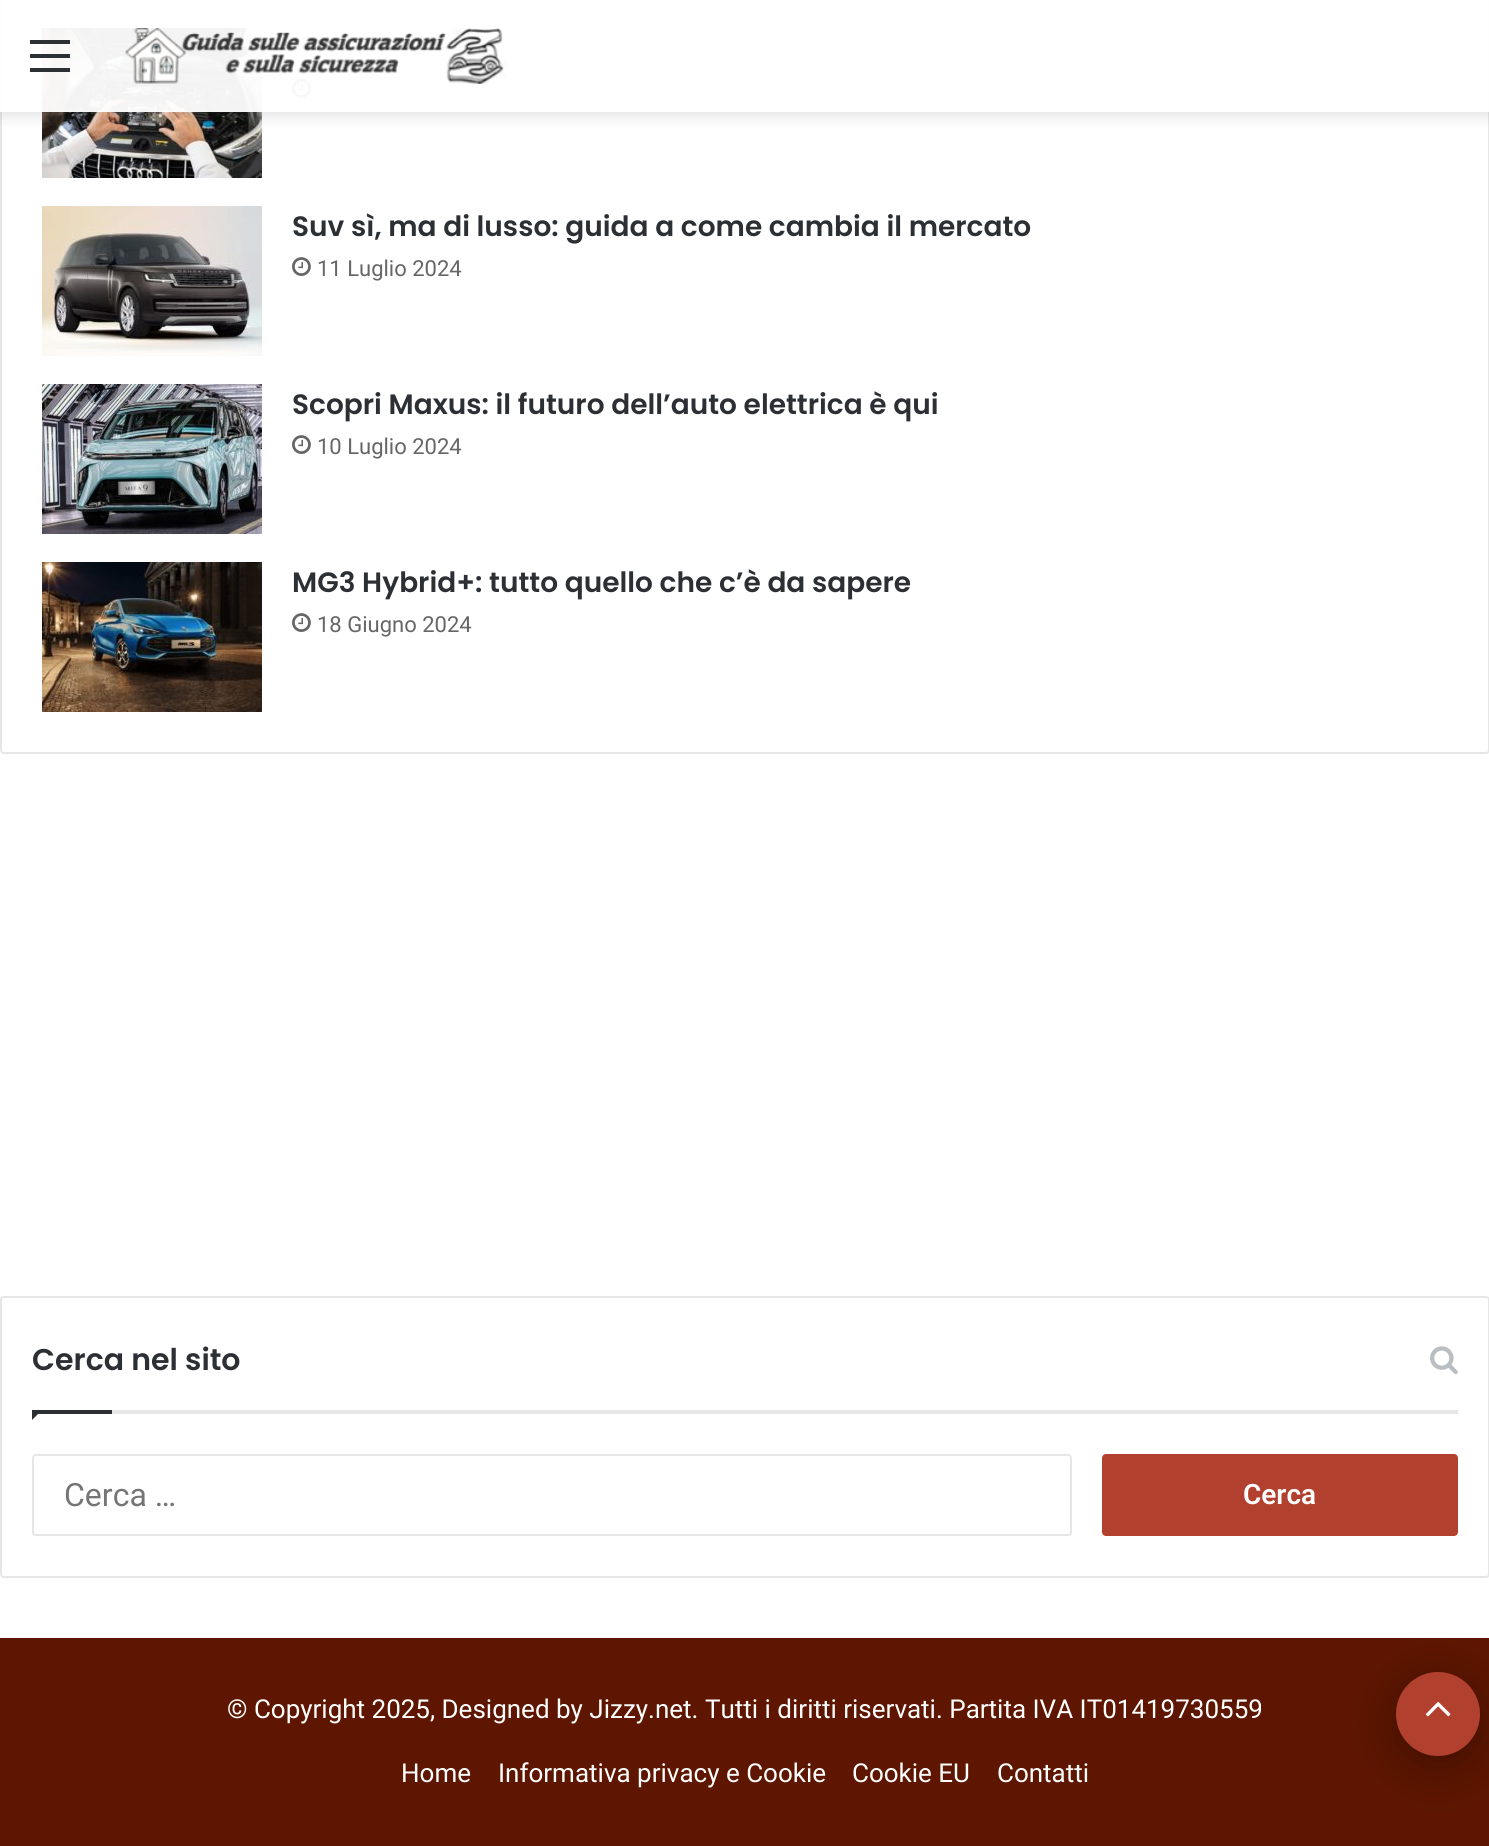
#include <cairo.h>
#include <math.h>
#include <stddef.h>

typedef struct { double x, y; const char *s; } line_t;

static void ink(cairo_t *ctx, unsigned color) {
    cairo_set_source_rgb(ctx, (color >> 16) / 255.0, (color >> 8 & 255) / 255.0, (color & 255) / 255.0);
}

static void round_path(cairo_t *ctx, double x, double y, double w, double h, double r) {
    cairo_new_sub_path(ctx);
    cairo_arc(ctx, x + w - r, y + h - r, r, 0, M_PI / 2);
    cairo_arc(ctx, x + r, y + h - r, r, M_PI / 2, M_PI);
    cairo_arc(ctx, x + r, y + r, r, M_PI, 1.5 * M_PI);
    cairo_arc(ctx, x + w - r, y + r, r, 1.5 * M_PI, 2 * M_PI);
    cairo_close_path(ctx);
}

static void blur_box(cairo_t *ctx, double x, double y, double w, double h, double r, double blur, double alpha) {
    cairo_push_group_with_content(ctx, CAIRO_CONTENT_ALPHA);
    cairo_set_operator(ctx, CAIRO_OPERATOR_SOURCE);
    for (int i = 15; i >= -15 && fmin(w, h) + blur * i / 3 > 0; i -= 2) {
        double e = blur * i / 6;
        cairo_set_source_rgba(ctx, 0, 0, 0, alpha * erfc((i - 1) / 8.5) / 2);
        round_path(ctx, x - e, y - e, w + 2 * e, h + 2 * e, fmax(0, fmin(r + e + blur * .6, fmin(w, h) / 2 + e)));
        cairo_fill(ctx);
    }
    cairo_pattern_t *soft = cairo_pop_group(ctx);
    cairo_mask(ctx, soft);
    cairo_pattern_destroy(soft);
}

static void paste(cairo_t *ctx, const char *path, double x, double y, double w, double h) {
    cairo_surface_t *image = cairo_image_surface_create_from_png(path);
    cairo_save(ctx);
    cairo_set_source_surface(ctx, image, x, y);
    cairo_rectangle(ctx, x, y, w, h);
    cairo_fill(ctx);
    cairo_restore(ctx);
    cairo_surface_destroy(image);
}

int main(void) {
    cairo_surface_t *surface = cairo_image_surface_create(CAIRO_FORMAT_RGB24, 1489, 1846);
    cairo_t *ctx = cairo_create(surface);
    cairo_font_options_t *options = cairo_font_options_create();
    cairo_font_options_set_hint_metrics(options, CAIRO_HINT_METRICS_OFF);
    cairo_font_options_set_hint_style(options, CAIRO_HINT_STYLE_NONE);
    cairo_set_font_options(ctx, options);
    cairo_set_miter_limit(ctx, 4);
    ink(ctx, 0xFFFFFF);
    cairo_paint(ctx);
    round_path(ctx, 1, -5, 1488, 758, 3);
    ink(ctx, 0xE6E6E6);
    cairo_stroke(ctx);
    paste(ctx, "media/2.png", 42, 28, 220, 150);
    paste(ctx, "media/3.png", 292, 79, 19, 19);
    cairo_save(ctx);
    cairo_rectangle(ctx, 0, 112, 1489, 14);
    cairo_clip(ctx);
    ink(ctx, 0x636363);
    blur_box(ctx, 0, 4, 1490, 112, 0, 8, 0.2);
    cairo_restore(ctx);
    cairo_set_source_rgba(ctx, 1, 1, 1, 0.95);
    cairo_rectangle(ctx, 0, 0, 1489, 112);
    cairo_fill(ctx);
    ink(ctx, 0x2C2F34);
    cairo_rectangle(ctx, 30, 54, 40, 4);
    cairo_fill(ctx);
    cairo_rectangle(ctx, 30, 40, 40, 4);
    cairo_fill(ctx);
    cairo_rectangle(ctx, 30, 68, 40, 4);
    cairo_fill(ctx);
    paste(ctx, "media/1.png", 125, 28, 381, 56);
    paste(ctx, "media/4.png", 42, 206, 220, 150);
    cairo_select_font_face(ctx, "Poppins SemiBold", CAIRO_FONT_SLANT_NORMAL, CAIRO_FONT_WEIGHT_NORMAL);
    cairo_set_font_size(ctx, 28);
    cairo_move_to(ctx, 292, 236);
    cairo_show_text(ctx, "Suv sì, ma di lusso: guida a come cambia il mercato");
    paste(ctx, "media/3.png", 292, 257, 19, 19);
    cairo_select_font_face(ctx, "Roboto", CAIRO_FONT_SLANT_NORMAL, CAIRO_FONT_WEIGHT_NORMAL);
    cairo_set_font_size(ctx, 22);
    ink(ctx, 0x666666);
    cairo_move_to(ctx, 317, 276);
    cairo_show_text(ctx, "11 Luglio 2024");
    paste(ctx, "media/5.png", 42, 384, 220, 150);
    cairo_select_font_face(ctx, "Poppins SemiBold", CAIRO_FONT_SLANT_NORMAL, CAIRO_FONT_WEIGHT_NORMAL);
    cairo_set_font_size(ctx, 28);
    ink(ctx, 0x2C2F34);
    cairo_move_to(ctx, 292, 414);
    cairo_show_text(ctx, "Scopri Maxus: il futuro dell’auto elettrica è qui");
    paste(ctx, "media/3.png", 292, 435, 19, 19);
    cairo_select_font_face(ctx, "Roboto", CAIRO_FONT_SLANT_NORMAL, CAIRO_FONT_WEIGHT_NORMAL);
    cairo_set_font_size(ctx, 22);
    ink(ctx, 0x666666);
    cairo_move_to(ctx, 317, 454);
    cairo_show_text(ctx, "10 Luglio 2024");
    paste(ctx, "media/6.png", 42, 562, 220, 150);
    cairo_select_font_face(ctx, "Poppins SemiBold", CAIRO_FONT_SLANT_NORMAL, CAIRO_FONT_WEIGHT_NORMAL);
    cairo_set_font_size(ctx, 28);
    ink(ctx, 0x2C2F34);
    cairo_move_to(ctx, 292, 592);
    cairo_show_text(ctx, "MG3 Hybrid+: tutto quello che c’è da sapere");
    paste(ctx, "media/3.png", 292, 613, 19, 19);
    cairo_select_font_face(ctx, "Roboto", CAIRO_FONT_SLANT_NORMAL, CAIRO_FONT_WEIGHT_NORMAL);
    cairo_set_font_size(ctx, 22);
    ink(ctx, 0x666666);
    cairo_move_to(ctx, 317, 632);
    cairo_show_text(ctx, "18 Giugno 2024");
    round_path(ctx, 1, 1297, 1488, 280, 3);
    ink(ctx, 0xE6E6E6);
    cairo_stroke(ctx);
    cairo_rectangle(ctx, 112, 1410, 1346, 4);
    cairo_fill(ctx);
    cairo_select_font_face(ctx, "Poppins SemiBold", CAIRO_FONT_SLANT_NORMAL, CAIRO_FONT_WEIGHT_NORMAL);
    cairo_set_font_size(ctx, 30);
    ink(ctx, 0x2C2F34);
    cairo_move_to(ctx, 32, 1370);
    cairo_show_text(ctx, "Cerca nel sito");
    paste(ctx, "media/7.png", 1430, 1346, 28, 29);
    cairo_new_path(ctx);
    cairo_move_to(ctx, 32, 1410);
    cairo_line_to(ctx, 42, 1410);
    cairo_line_to(ctx, 32, 1420);
    cairo_close_path(ctx);
    cairo_fill(ctx);
    cairo_rectangle(ctx, 32, 1410, 80, 4);
    cairo_fill(ctx);
    round_path(ctx, 33, 1455, 1038, 80, 3);
    ink(ctx, 0xE6E6E6);
    cairo_stroke(ctx);
    cairo_select_font_face(ctx, "Roboto", CAIRO_FONT_SLANT_NORMAL, CAIRO_FONT_WEIGHT_NORMAL);
    cairo_set_font_size(ctx, 32);
    ink(ctx, 0x757575);
    cairo_move_to(ctx, 64, 1506);
    cairo_show_text(ctx, "Cerca …");
    ink(ctx, 0xB2402E);
    round_path(ctx, 1102, 1454, 356, 82, 4);
    cairo_fill(ctx);
    cairo_select_font_face(ctx, "Roboto SemiBold", CAIRO_FONT_SLANT_NORMAL, CAIRO_FONT_WEIGHT_NORMAL);
    cairo_set_font_size(ctx, 28);
    ink(ctx, 0xFFFFFF);
    cairo_move_to(ctx, 1243, 1504);
    cairo_show_text(ctx, "Cerca");
    ink(ctx, 0x5E1600);
    cairo_rectangle(ctx, 0, 1638, 1489, 208);
    cairo_fill(ctx);
    cairo_select_font_face(ctx, "Roboto", CAIRO_FONT_SLANT_NORMAL, CAIRO_FONT_WEIGHT_NORMAL);
    cairo_set_font_size(ctx, 26);
    ink(ctx, 0xFFFFFF);
    {
        static const line_t items[] = {
            {227, 1718, "© Copyright 2025, Designed by Jizzy.net. Tutti i diritti riservati. Partita IVA IT01419730559"},
            {401, 1782, "Home"},
            {498, 1782, "Informativa privacy e Cookie"},
            {852, 1782, "Cookie EU"},
            {997, 1782, "Contatti"},
        };
        for (size_t i = 0; i < sizeof items / sizeof *items; i++) {
            cairo_move_to(ctx, items[i].x, items[i].y);
            cairo_show_text(ctx, items[i].s);
        }
    }
    ink(ctx, 0x000000);
    blur_box(ctx, 1396, 1682, 84, 84, 42, 25, 0.3);
    ink(ctx, 0xB2402E);
    cairo_arc(ctx, 1438, 1714, 42, 0, 2 * M_PI);
    cairo_fill(ctx);
    paste(ctx, "media/8.png", 1425, 1702, 26, 15);
    cairo_surface_write_to_png(surface, "image.png");
    cairo_font_options_destroy(options);
    cairo_destroy(ctx);
    cairo_surface_destroy(surface);
    return 0;
}
